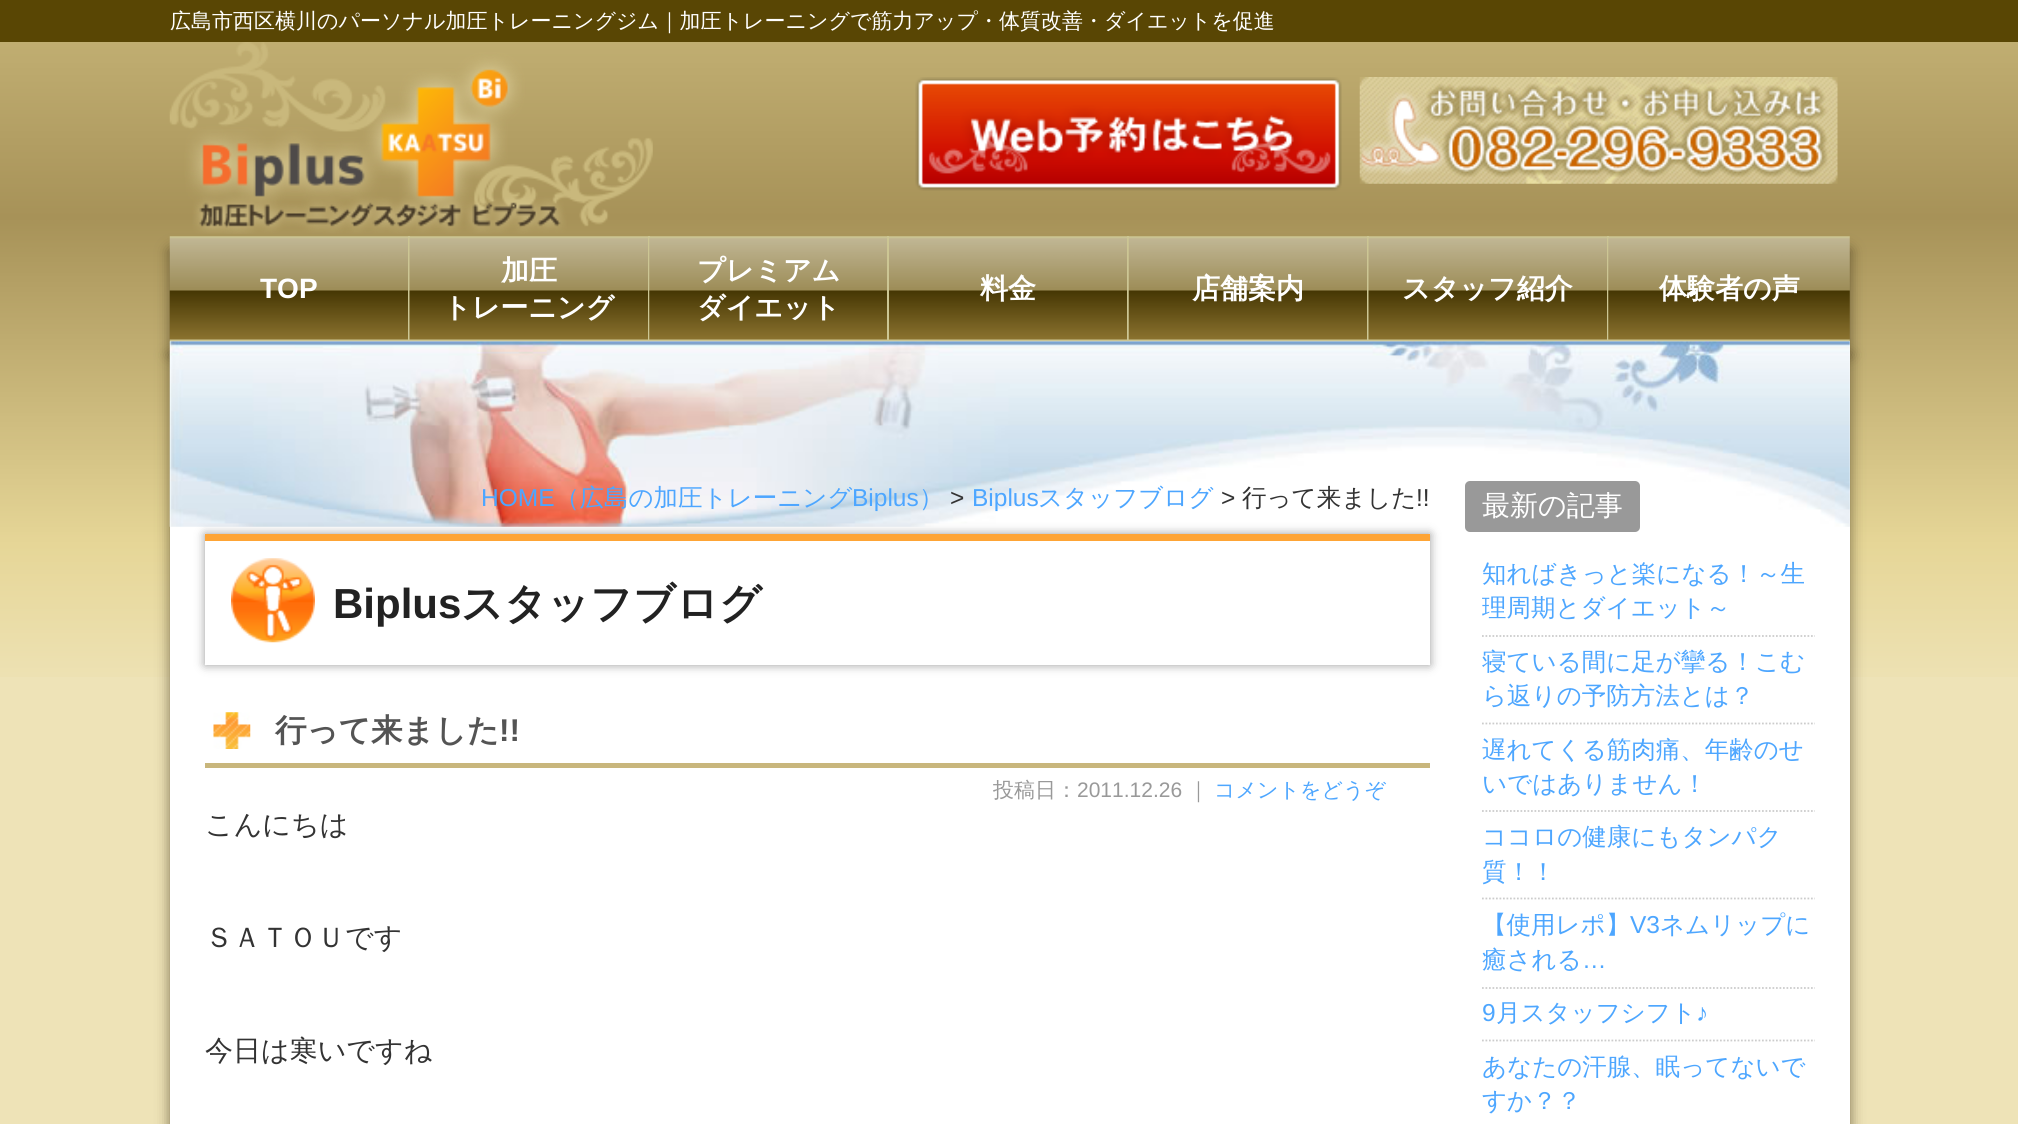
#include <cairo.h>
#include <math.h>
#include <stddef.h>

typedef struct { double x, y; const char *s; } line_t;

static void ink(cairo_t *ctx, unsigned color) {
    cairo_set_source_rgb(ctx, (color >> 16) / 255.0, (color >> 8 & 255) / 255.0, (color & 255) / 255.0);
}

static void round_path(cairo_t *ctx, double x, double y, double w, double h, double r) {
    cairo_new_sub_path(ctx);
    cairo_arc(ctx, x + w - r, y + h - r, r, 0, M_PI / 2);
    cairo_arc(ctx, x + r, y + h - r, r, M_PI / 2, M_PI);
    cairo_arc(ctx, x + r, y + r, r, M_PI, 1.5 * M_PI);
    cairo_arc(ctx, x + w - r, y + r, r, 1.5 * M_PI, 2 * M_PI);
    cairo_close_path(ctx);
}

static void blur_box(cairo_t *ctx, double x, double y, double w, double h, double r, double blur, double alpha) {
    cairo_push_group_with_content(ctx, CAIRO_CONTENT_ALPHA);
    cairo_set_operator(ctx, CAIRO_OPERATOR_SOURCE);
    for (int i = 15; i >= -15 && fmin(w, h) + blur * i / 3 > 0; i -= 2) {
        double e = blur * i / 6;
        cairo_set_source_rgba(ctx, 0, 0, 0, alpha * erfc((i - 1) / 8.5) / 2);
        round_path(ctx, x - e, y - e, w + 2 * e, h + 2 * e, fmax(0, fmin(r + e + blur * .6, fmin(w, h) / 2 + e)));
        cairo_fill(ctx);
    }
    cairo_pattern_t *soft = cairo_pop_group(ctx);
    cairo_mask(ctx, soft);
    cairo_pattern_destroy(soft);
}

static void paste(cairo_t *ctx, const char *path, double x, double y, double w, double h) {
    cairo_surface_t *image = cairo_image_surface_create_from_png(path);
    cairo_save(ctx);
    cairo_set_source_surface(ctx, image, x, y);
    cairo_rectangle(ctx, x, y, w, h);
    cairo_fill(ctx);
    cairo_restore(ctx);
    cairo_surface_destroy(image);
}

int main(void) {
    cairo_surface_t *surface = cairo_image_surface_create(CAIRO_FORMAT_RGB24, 2018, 1124);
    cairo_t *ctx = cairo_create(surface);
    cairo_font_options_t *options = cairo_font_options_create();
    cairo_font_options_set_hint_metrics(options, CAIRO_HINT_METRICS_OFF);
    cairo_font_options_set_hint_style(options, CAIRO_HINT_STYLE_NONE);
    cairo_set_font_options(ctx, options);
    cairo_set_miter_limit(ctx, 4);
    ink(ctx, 0xEEE3B7);
    cairo_paint(ctx);
    paste(ctx, "media/1.png", 0, 42, 2018, 635);
    ink(ctx, 0x594604);
    cairo_rectangle(ctx, 0, 0, 2018, 42);
    cairo_fill(ctx);
    cairo_select_font_face(ctx, "WenQuanYi Zen Hei Medium", CAIRO_FONT_SLANT_NORMAL, CAIRO_FONT_WEIGHT_NORMAL);
    cairo_set_font_size(ctx, 21);
    ink(ctx, 0xFFFFFF);
    cairo_move_to(ctx, 170, 28);
    cairo_show_text(ctx, "広島市西区横川のパーソナル加圧トレーニングジム｜加圧トレーニングで筋力アップ・体質改善・ダイエットを促進");
    ink(ctx, 0x3C3015);
    blur_box(ctx, 170, 250, 1680, 105, 0, 7, 0.65);
    paste(ctx, "media/2.png", 169, 42, 484, 192);
    paste(ctx, "media/3.png", 915, 77, 427, 114);
    paste(ctx, "media/4.png", 1359, 77, 479, 107);
    blur_box(ctx, 170, 355, 1680, 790, 0, 7, 0.65);
    ink(ctx, 0xFFFFFF);
    cairo_rectangle(ctx, 170, 341, 1680, 783);
    cairo_fill(ctx);
    paste(ctx, "media/12.png", 169, 341, 1681, 186);
    paste(ctx, "media/5.png", 169, 236, 241, 106);
    ink(ctx, 0xCCC694);
    cairo_rectangle(ctx, 408, 236, 2, 105);
    cairo_fill(ctx);
    cairo_select_font_face(ctx, "Liberation Sans", CAIRO_FONT_SLANT_NORMAL, CAIRO_FONT_WEIGHT_BOLD);
    cairo_set_font_size(ctx, 28);
    ink(ctx, 0xFFFFFF);
    cairo_move_to(ctx, 260, 298);
    cairo_show_text(ctx, "TOP");
    paste(ctx, "media/6.png", 409, 236, 241, 106);
    ink(ctx, 0xCCC694);
    cairo_rectangle(ctx, 648, 236, 2, 105);
    cairo_fill(ctx);
    cairo_select_font_face(ctx, "WenQuanYi Zen Hei", CAIRO_FONT_SLANT_NORMAL, CAIRO_FONT_WEIGHT_BOLD);
    ink(ctx, 0xFFFFFF);
    cairo_move_to(ctx, 501, 280);
    cairo_show_text(ctx, "加圧");
    cairo_move_to(ctx, 443, 317);
    cairo_show_text(ctx, "トレーニング");
    paste(ctx, "media/7.png", 649, 236, 240, 106);
    ink(ctx, 0xCCC694);
    cairo_rectangle(ctx, 887, 236, 2, 105);
    cairo_fill(ctx);
    ink(ctx, 0xFFFFFF);
    cairo_move_to(ctx, 697, 280);
    cairo_show_text(ctx, "プレミアム");
    cairo_move_to(ctx, 697, 317);
    cairo_show_text(ctx, "ダイエット");
    paste(ctx, "media/8.png", 889, 236, 240, 106);
    ink(ctx, 0xCCC694);
    cairo_rectangle(ctx, 1127, 236, 2, 105);
    cairo_fill(ctx);
    ink(ctx, 0xFFFFFF);
    cairo_move_to(ctx, 980, 298);
    cairo_show_text(ctx, "料金");
    paste(ctx, "media/9.png", 1128, 236, 241, 106);
    ink(ctx, 0xCCC694);
    cairo_rectangle(ctx, 1367, 236, 2, 105);
    cairo_fill(ctx);
    ink(ctx, 0xFFFFFF);
    cairo_move_to(ctx, 1192, 298);
    cairo_show_text(ctx, "店舗案内");
    paste(ctx, "media/10.png", 1368, 236, 241, 106);
    ink(ctx, 0xCCC694);
    cairo_rectangle(ctx, 1607, 236, 2, 105);
    cairo_fill(ctx);
    ink(ctx, 0xFFFFFF);
    cairo_move_to(ctx, 1402, 298);
    cairo_show_text(ctx, "スタッフ紹介");
    paste(ctx, "media/11.png", 1608, 236, 242, 106);
    cairo_move_to(ctx, 1659, 298);
    cairo_show_text(ctx, "体験者の声");
    cairo_select_font_face(ctx, "Liberation Sans", CAIRO_FONT_SLANT_NORMAL, CAIRO_FONT_WEIGHT_NORMAL);
    cairo_set_font_size(ctx, 24.5);
    ink(ctx, 0x4DA6FF);
    cairo_move_to(ctx, 481, 506);
    cairo_show_text(ctx, "HOME");
    cairo_select_font_face(ctx, "WenQuanYi Zen Hei Medium", CAIRO_FONT_SLANT_NORMAL, CAIRO_FONT_WEIGHT_NORMAL);
    cairo_move_to(ctx, 555, 506);
    cairo_show_text(ctx, "（広島の加圧トレーニング");
    cairo_select_font_face(ctx, "Liberation Sans", CAIRO_FONT_SLANT_NORMAL, CAIRO_FONT_WEIGHT_NORMAL);
    cairo_move_to(ctx, 852, 506);
    cairo_show_text(ctx, "Biplus");
    cairo_select_font_face(ctx, "WenQuanYi Zen Hei Medium", CAIRO_FONT_SLANT_NORMAL, CAIRO_FONT_WEIGHT_NORMAL);
    cairo_move_to(ctx, 919, 506);
    cairo_show_text(ctx, "）");
    cairo_select_font_face(ctx, "Liberation Sans", CAIRO_FONT_SLANT_NORMAL, CAIRO_FONT_WEIGHT_NORMAL);
    ink(ctx, 0x333333);
    cairo_move_to(ctx, 950, 506);
    cairo_show_text(ctx, ">");
    ink(ctx, 0x4DA6FF);
    cairo_move_to(ctx, 972, 506);
    cairo_show_text(ctx, "Biplus");
    cairo_select_font_face(ctx, "WenQuanYi Zen Hei Medium", CAIRO_FONT_SLANT_NORMAL, CAIRO_FONT_WEIGHT_NORMAL);
    cairo_move_to(ctx, 1038, 506);
    cairo_show_text(ctx, "スタッフブログ");
    cairo_select_font_face(ctx, "Liberation Sans", CAIRO_FONT_SLANT_NORMAL, CAIRO_FONT_WEIGHT_NORMAL);
    ink(ctx, 0x333333);
    cairo_move_to(ctx, 1221, 506);
    cairo_show_text(ctx, ">");
    cairo_select_font_face(ctx, "WenQuanYi Zen Hei Medium", CAIRO_FONT_SLANT_NORMAL, CAIRO_FONT_WEIGHT_NORMAL);
    cairo_move_to(ctx, 1242, 506);
    cairo_show_text(ctx, "行って来ました");
    cairo_select_font_face(ctx, "Liberation Sans", CAIRO_FONT_SLANT_NORMAL, CAIRO_FONT_WEIGHT_NORMAL);
    cairo_move_to(ctx, 1416, 506);
    cairo_show_text(ctx, "!!");
    cairo_save(ctx);
    cairo_set_fill_rule(ctx, CAIRO_FILL_RULE_EVEN_ODD);
    cairo_new_path(ctx);
    cairo_move_to(ctx, 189, 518);
    cairo_line_to(ctx, 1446, 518);
    cairo_line_to(ctx, 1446, 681);
    cairo_line_to(ctx, 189, 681);
    cairo_close_path(ctx);
    cairo_move_to(ctx, 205, 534);
    cairo_line_to(ctx, 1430, 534);
    cairo_line_to(ctx, 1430, 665);
    cairo_line_to(ctx, 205, 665);
    cairo_close_path(ctx);
    cairo_clip(ctx);
    ink(ctx, 0x000000);
    blur_box(ctx, 205, 534, 1225, 131, 0, 5, 0.4);
    cairo_restore(ctx);
    ink(ctx, 0xFEA435);
    cairo_rectangle(ctx, 205, 534, 1225, 7);
    cairo_fill(ctx);
    paste(ctx, "media/13.png", 231, 558, 84, 85);
    cairo_select_font_face(ctx, "Liberation Sans", CAIRO_FONT_SLANT_NORMAL, CAIRO_FONT_WEIGHT_BOLD);
    cairo_set_font_size(ctx, 42);
    ink(ctx, 0x222222);
    cairo_move_to(ctx, 333, 618);
    cairo_show_text(ctx, "Biplus");
    cairo_select_font_face(ctx, "WenQuanYi Zen Hei", CAIRO_FONT_SLANT_NORMAL, CAIRO_FONT_WEIGHT_BOLD);
    cairo_move_to(ctx, 461, 618);
    cairo_show_text(ctx, "スタッフブログ");
    paste(ctx, "media/14.png", 213, 712, 38, 37);
    ink(ctx, 0xC8B67C);
    cairo_rectangle(ctx, 205, 763, 1225, 5);
    cairo_fill(ctx);
    cairo_set_font_size(ctx, 31.5);
    ink(ctx, 0x545454);
    cairo_move_to(ctx, 275, 741);
    cairo_show_text(ctx, "行って来ました");
    cairo_select_font_face(ctx, "Liberation Sans", CAIRO_FONT_SLANT_NORMAL, CAIRO_FONT_WEIGHT_BOLD);
    cairo_move_to(ctx, 499, 741);
    cairo_show_text(ctx, "!!");
    cairo_select_font_face(ctx, "WenQuanYi Zen Hei Medium", CAIRO_FONT_SLANT_NORMAL, CAIRO_FONT_WEIGHT_NORMAL);
    cairo_set_font_size(ctx, 21);
    ink(ctx, 0x999999);
    cairo_move_to(ctx, 993, 797);
    cairo_show_text(ctx, "投稿日：");
    cairo_select_font_face(ctx, "Liberation Sans", CAIRO_FONT_SLANT_NORMAL, CAIRO_FONT_WEIGHT_NORMAL);
    cairo_move_to(ctx, 1077, 797);
    cairo_show_text(ctx, "2011.12.26");
    cairo_select_font_face(ctx, "WenQuanYi Zen Hei Medium", CAIRO_FONT_SLANT_NORMAL, CAIRO_FONT_WEIGHT_NORMAL);
    cairo_move_to(ctx, 1188, 797);
    cairo_show_text(ctx, "｜");
    ink(ctx, 0x4DA6FF);
    cairo_move_to(ctx, 1214, 797);
    cairo_show_text(ctx, "コメントをどうぞ");
    cairo_set_font_size(ctx, 28);
    ink(ctx, 0x333333);
    {
        static const line_t items[] = {
            {205, 834, "こんにちは"},
            {205, 947, "ＳＡＴＯＵです"},
            {205, 1060, "今日は寒いですね"},
        };
        for (size_t i = 0; i < sizeof items / sizeof *items; i++) {
            cairo_move_to(ctx, items[i].x, items[i].y);
            cairo_show_text(ctx, items[i].s);
        }
    }
    ink(ctx, 0x999999);
    round_path(ctx, 1465, 481, 175, 51, 5);
    cairo_fill(ctx);
    ink(ctx, 0xFFFFFF);
    cairo_move_to(ctx, 1482, 515);
    cairo_show_text(ctx, "最新の記事");
    cairo_new_path(ctx);
    cairo_move_to(ctx, 1482, 636);
    cairo_line_to(ctx, 1815, 636);
    ink(ctx, 0xCCCCCC);
    cairo_set_line_width(ctx, 1.8);
    cairo_set_dash(ctx, (double[]){1.75, 1.75}, 2, 0);
    cairo_stroke(ctx);
    cairo_set_font_size(ctx, 24.5);
    ink(ctx, 0x4DA6FF);
    cairo_move_to(ctx, 1482, 582);
    cairo_show_text(ctx, "知ればきっと楽になる！～生");
    cairo_move_to(ctx, 1482, 616);
    cairo_show_text(ctx, "理周期とダイエット～");
    cairo_new_path(ctx);
    cairo_move_to(ctx, 1482, 723.5);
    cairo_line_to(ctx, 1815, 723.5);
    ink(ctx, 0xCCCCCC);
    cairo_stroke(ctx);
    ink(ctx, 0x4DA6FF);
    cairo_move_to(ctx, 1482, 670);
    cairo_show_text(ctx, "寝ている間に足が攣る！こむ");
    cairo_move_to(ctx, 1482, 704);
    cairo_show_text(ctx, "ら返りの予防方法とは？");
    cairo_new_path(ctx);
    cairo_move_to(ctx, 1482, 811);
    cairo_line_to(ctx, 1815, 811);
    ink(ctx, 0xCCCCCC);
    cairo_stroke(ctx);
    ink(ctx, 0x4DA6FF);
    cairo_move_to(ctx, 1482, 758);
    cairo_show_text(ctx, "遅れてくる筋肉痛、年齢のせ");
    cairo_move_to(ctx, 1482, 792);
    cairo_show_text(ctx, "いではありません！");
    cairo_new_path(ctx);
    cairo_move_to(ctx, 1482, 898.5);
    cairo_line_to(ctx, 1815, 898.5);
    ink(ctx, 0xCCCCCC);
    cairo_stroke(ctx);
    ink(ctx, 0x4DA6FF);
    cairo_move_to(ctx, 1482, 845);
    cairo_show_text(ctx, "ココロの健康にもタンパク");
    cairo_move_to(ctx, 1482, 880);
    cairo_show_text(ctx, "質！！");
    cairo_new_path(ctx);
    cairo_move_to(ctx, 1482, 988);
    cairo_line_to(ctx, 1815, 988);
    ink(ctx, 0xCCCCCC);
    cairo_stroke(ctx);
    ink(ctx, 0x4DA6FF);
    cairo_move_to(ctx, 1482, 933);
    cairo_show_text(ctx, "【使用レポ】");
    cairo_select_font_face(ctx, "Liberation Sans", CAIRO_FONT_SLANT_NORMAL, CAIRO_FONT_WEIGHT_NORMAL);
    cairo_move_to(ctx, 1630, 933);
    cairo_show_text(ctx, "V3");
    cairo_select_font_face(ctx, "WenQuanYi Zen Hei Medium", CAIRO_FONT_SLANT_NORMAL, CAIRO_FONT_WEIGHT_NORMAL);
    cairo_move_to(ctx, 1660, 933);
    cairo_show_text(ctx, "ネムリップに");
    cairo_move_to(ctx, 1482, 968);
    cairo_show_text(ctx, "癒される");
    cairo_select_font_face(ctx, "Liberation Sans", CAIRO_FONT_SLANT_NORMAL, CAIRO_FONT_WEIGHT_NORMAL);
    cairo_move_to(ctx, 1582, 968);
    cairo_show_text(ctx, "…");
    cairo_new_path(ctx);
    cairo_move_to(ctx, 1482, 1040.5);
    cairo_line_to(ctx, 1815, 1040.5);
    ink(ctx, 0xCCCCCC);
    cairo_stroke(ctx);
    ink(ctx, 0x4DA6FF);
    cairo_move_to(ctx, 1482, 1021);
    cairo_show_text(ctx, "9");
    cairo_select_font_face(ctx, "WenQuanYi Zen Hei Medium", CAIRO_FONT_SLANT_NORMAL, CAIRO_FONT_WEIGHT_NORMAL);
    cairo_move_to(ctx, 1496, 1021);
    cairo_show_text(ctx, "月スタッフシフト");
    cairo_select_font_face(ctx, "Liberation Sans", CAIRO_FONT_SLANT_NORMAL, CAIRO_FONT_WEIGHT_NORMAL);
    cairo_move_to(ctx, 1696, 1021);
    cairo_show_text(ctx, "♪");
    cairo_select_font_face(ctx, "WenQuanYi Zen Hei Medium", CAIRO_FONT_SLANT_NORMAL, CAIRO_FONT_WEIGHT_NORMAL);
    cairo_move_to(ctx, 1482, 1075);
    cairo_show_text(ctx, "あなたの汗腺、眠ってないで");
    cairo_move_to(ctx, 1482, 1109);
    cairo_show_text(ctx, "すか？？");
    cairo_surface_write_to_png(surface, "image.png");
    cairo_font_options_destroy(options);
    cairo_destroy(ctx);
    cairo_surface_destroy(surface);
    return 0;
}
